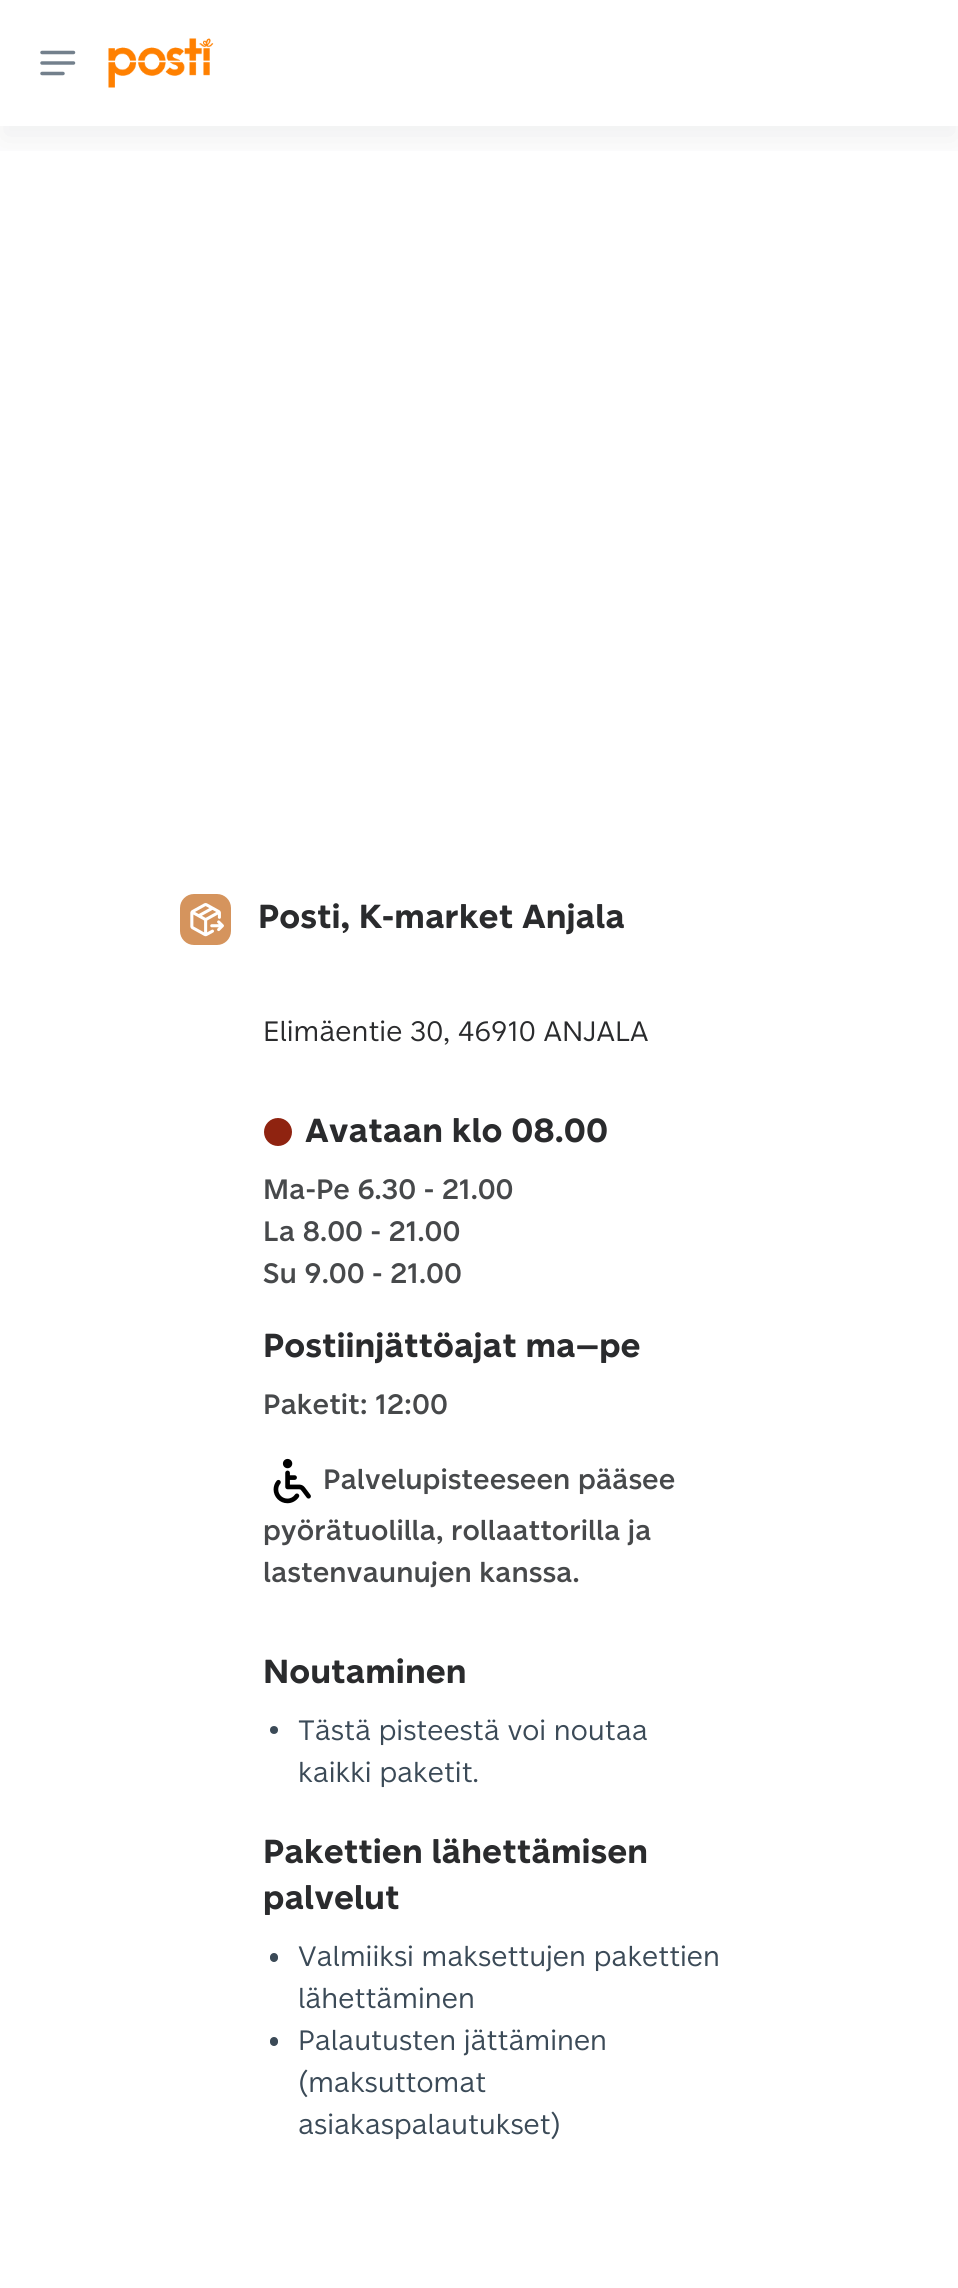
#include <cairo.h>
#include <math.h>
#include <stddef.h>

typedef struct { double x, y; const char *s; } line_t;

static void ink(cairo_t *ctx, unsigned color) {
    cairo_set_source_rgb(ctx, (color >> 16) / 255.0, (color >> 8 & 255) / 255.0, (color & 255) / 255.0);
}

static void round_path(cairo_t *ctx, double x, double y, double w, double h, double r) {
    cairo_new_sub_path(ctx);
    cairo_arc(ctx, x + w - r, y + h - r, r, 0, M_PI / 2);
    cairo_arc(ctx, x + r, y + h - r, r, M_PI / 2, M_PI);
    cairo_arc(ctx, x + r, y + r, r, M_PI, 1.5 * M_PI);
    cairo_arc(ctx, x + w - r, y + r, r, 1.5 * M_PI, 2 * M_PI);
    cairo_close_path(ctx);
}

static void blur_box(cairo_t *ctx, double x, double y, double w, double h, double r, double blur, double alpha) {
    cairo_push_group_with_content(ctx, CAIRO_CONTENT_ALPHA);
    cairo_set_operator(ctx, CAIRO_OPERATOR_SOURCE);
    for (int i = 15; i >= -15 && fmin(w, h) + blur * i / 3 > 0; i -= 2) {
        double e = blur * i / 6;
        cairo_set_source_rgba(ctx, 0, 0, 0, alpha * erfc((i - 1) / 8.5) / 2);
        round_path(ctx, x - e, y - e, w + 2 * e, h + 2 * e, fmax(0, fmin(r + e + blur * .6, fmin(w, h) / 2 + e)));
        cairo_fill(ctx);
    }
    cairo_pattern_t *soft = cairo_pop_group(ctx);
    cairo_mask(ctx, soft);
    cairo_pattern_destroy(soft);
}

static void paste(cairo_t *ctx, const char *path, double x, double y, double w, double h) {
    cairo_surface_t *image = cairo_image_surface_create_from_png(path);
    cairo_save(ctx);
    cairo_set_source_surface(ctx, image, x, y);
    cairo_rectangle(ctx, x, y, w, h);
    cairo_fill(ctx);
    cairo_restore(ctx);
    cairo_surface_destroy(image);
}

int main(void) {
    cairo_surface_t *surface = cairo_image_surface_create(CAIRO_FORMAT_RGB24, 958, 2288);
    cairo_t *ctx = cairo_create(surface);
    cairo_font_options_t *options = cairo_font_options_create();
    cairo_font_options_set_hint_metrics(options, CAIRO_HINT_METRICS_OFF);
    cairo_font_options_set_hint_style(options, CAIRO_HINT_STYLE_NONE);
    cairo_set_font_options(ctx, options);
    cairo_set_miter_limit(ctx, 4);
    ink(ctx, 0xFFFFFF);
    cairo_paint(ctx);
    cairo_save(ctx);
    cairo_rectangle(ctx, 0, 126, 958, 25);
    cairo_clip(ctx);
    ink(ctx, 0x1B1F23);
    blur_box(ctx, 0, 14, 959, 126, 0, 19, 0.07);
    cairo_restore(ctx);
    paste(ctx, "media/1.png", 40, 50, 36, 26);
    paste(ctx, "media/2.png", 108, 38, 106, 50);
    ink(ctx, 0xD5945D);
    round_path(ctx, 180, 894, 51, 51, 14);
    cairo_fill(ctx);
    paste(ctx, "media/3.png", 190, 903, 34, 34);
    cairo_select_font_face(ctx, "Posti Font", CAIRO_FONT_SLANT_NORMAL, CAIRO_FONT_WEIGHT_BOLD);
    cairo_set_font_size(ctx, 33.25);
    ink(ctx, 0x2A2B2D);
    cairo_move_to(ctx, 258, 928);
    cairo_show_text(ctx, "Posti, K-market Anjala");
    cairo_select_font_face(ctx, "Posti Font", CAIRO_FONT_SLANT_NORMAL, CAIRO_FONT_WEIGHT_NORMAL);
    cairo_set_font_size(ctx, 28);
    cairo_move_to(ctx, 263, 1041);
    cairo_show_text(ctx, "Elimäentie 30, 46910 ANJALA");
    ink(ctx, 0x8F2310);
    cairo_new_path(ctx);
    cairo_arc(ctx, 278, 1132, 14, 0, 2 * M_PI);
    cairo_fill(ctx);
    cairo_select_font_face(ctx, "Posti Font", CAIRO_FONT_SLANT_NORMAL, CAIRO_FONT_WEIGHT_BOLD);
    cairo_set_font_size(ctx, 33.25);
    ink(ctx, 0x2A2B2D);
    cairo_move_to(ctx, 305, 1142);
    cairo_show_text(ctx, "Avataan klo 08.00");
    cairo_select_font_face(ctx, "Posti Font Medium", CAIRO_FONT_SLANT_NORMAL, CAIRO_FONT_WEIGHT_NORMAL);
    cairo_set_font_size(ctx, 28);
    ink(ctx, 0x47494B);
    {
        static const line_t items[] = {
            {263, 1199, "Ma-Pe 6.30 - 21.00"},
            {263, 1241, "La 8.00 - 21.00"},
            {263, 1283, "Su 9.00 - 21.00"},
        };
        for (size_t i = 0; i < sizeof items / sizeof *items; i++) {
            cairo_move_to(ctx, items[i].x, items[i].y);
            cairo_show_text(ctx, items[i].s);
        }
    }
    cairo_select_font_face(ctx, "Posti Font", CAIRO_FONT_SLANT_NORMAL, CAIRO_FONT_WEIGHT_BOLD);
    cairo_set_font_size(ctx, 33.25);
    ink(ctx, 0x2A2B2D);
    cairo_move_to(ctx, 263, 1357);
    cairo_show_text(ctx, "Postiinjättöajat ma–pe");
    cairo_select_font_face(ctx, "Posti Font Medium", CAIRO_FONT_SLANT_NORMAL, CAIRO_FONT_WEIGHT_NORMAL);
    cairo_set_font_size(ctx, 28);
    ink(ctx, 0x47494B);
    cairo_move_to(ctx, 263, 1414);
    cairo_show_text(ctx, "Paketit: 12:00");
    paste(ctx, "media/4.png", 273, 1458, 38, 46);
    {
        static const line_t items[] = {
            {323, 1489, "Palvelupisteeseen pääsee"},
            {263, 1540, "pyörätuolilla, rollaattorilla ja"},
            {263, 1582, "lastenvaunujen kanssa."},
        };
        for (size_t i = 0; i < sizeof items / sizeof *items; i++) {
            cairo_move_to(ctx, items[i].x, items[i].y);
            cairo_show_text(ctx, items[i].s);
        }
    }
    cairo_select_font_face(ctx, "Posti Font", CAIRO_FONT_SLANT_NORMAL, CAIRO_FONT_WEIGHT_BOLD);
    cairo_set_font_size(ctx, 33.25);
    ink(ctx, 0x2A2B2D);
    cairo_move_to(ctx, 263, 1683);
    cairo_show_text(ctx, "Noutaminen");
    ink(ctx, 0x3B4A57);
    cairo_new_path(ctx);
    cairo_arc(ctx, 274, 1730, 4, 0, 2 * M_PI);
    cairo_fill(ctx);
    cairo_select_font_face(ctx, "Posti Font", CAIRO_FONT_SLANT_NORMAL, CAIRO_FONT_WEIGHT_NORMAL);
    cairo_set_font_size(ctx, 28);
    cairo_move_to(ctx, 298, 1740);
    cairo_show_text(ctx, "Tästä pisteestä voi noutaa");
    cairo_move_to(ctx, 298, 1782);
    cairo_show_text(ctx, "kaikki paketit.");
    cairo_select_font_face(ctx, "Posti Font", CAIRO_FONT_SLANT_NORMAL, CAIRO_FONT_WEIGHT_BOLD);
    cairo_set_font_size(ctx, 33.25);
    ink(ctx, 0x2A2B2D);
    cairo_move_to(ctx, 263, 1863);
    cairo_show_text(ctx, "Pakettien lähettämisen");
    cairo_move_to(ctx, 263, 1909);
    cairo_show_text(ctx, "palvelut");
    ink(ctx, 0x3B4A57);
    round_path(ctx, 270, 1953, 8, 9, 4);
    cairo_fill(ctx);
    cairo_select_font_face(ctx, "Posti Font", CAIRO_FONT_SLANT_NORMAL, CAIRO_FONT_WEIGHT_NORMAL);
    cairo_set_font_size(ctx, 28);
    cairo_move_to(ctx, 298, 1966);
    cairo_show_text(ctx, "Valmiiksi maksettujen pakettien");
    cairo_move_to(ctx, 298, 2008);
    cairo_show_text(ctx, "lähettäminen");
    round_path(ctx, 270, 2037, 8, 9, 4);
    cairo_fill(ctx);
    {
        static const line_t items[] = {
            {298, 2050, "Palautusten jättäminen"},
            {298, 2092, "(maksuttomat"},
            {298, 2134, "asiakaspalautukset)"},
        };
        for (size_t i = 0; i < sizeof items / sizeof *items; i++) {
            cairo_move_to(ctx, items[i].x, items[i].y);
            cairo_show_text(ctx, items[i].s);
        }
    }
    cairo_surface_write_to_png(surface, "image.png");
    cairo_font_options_destroy(options);
    cairo_destroy(ctx);
    cairo_surface_destroy(surface);
    return 0;
}
